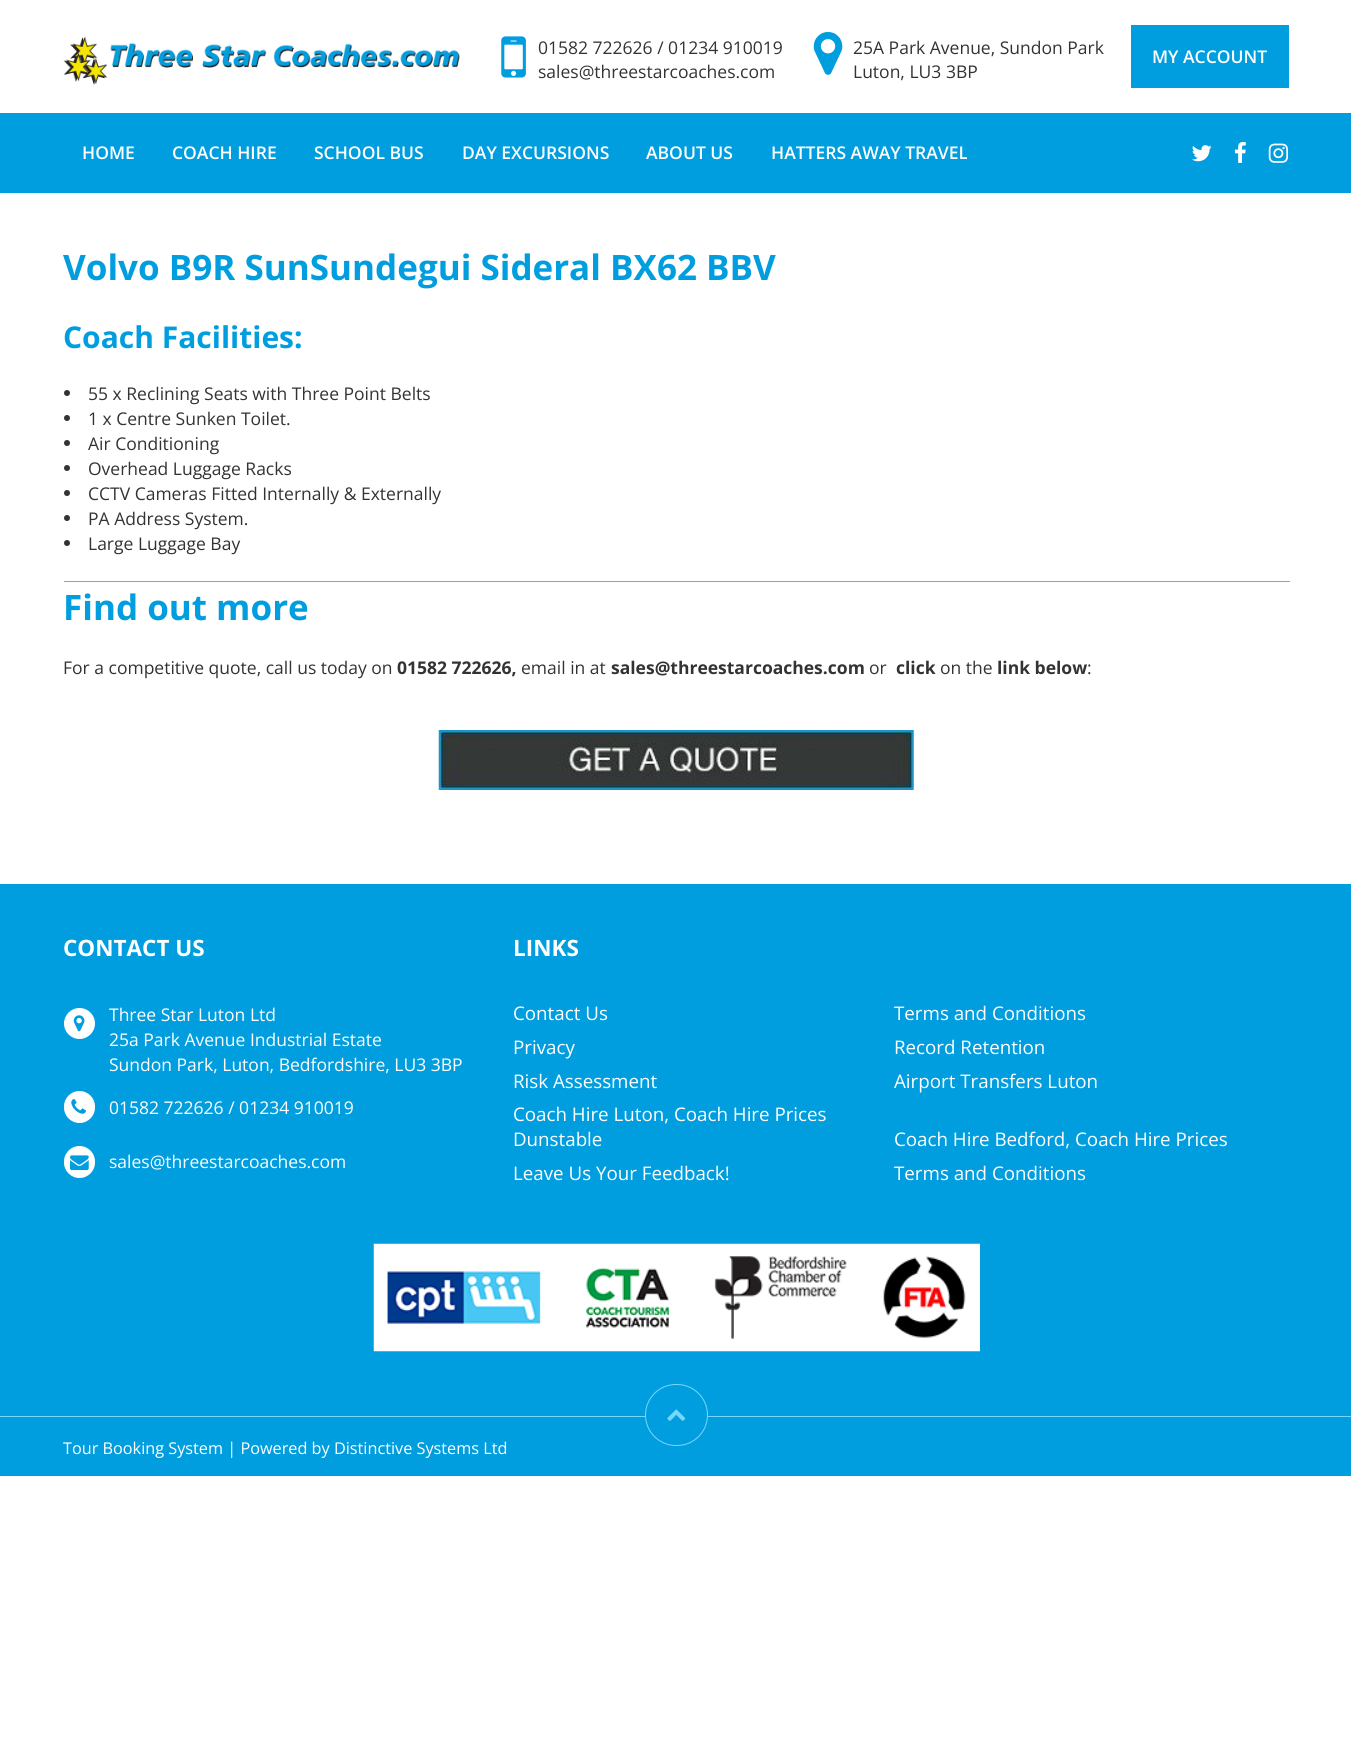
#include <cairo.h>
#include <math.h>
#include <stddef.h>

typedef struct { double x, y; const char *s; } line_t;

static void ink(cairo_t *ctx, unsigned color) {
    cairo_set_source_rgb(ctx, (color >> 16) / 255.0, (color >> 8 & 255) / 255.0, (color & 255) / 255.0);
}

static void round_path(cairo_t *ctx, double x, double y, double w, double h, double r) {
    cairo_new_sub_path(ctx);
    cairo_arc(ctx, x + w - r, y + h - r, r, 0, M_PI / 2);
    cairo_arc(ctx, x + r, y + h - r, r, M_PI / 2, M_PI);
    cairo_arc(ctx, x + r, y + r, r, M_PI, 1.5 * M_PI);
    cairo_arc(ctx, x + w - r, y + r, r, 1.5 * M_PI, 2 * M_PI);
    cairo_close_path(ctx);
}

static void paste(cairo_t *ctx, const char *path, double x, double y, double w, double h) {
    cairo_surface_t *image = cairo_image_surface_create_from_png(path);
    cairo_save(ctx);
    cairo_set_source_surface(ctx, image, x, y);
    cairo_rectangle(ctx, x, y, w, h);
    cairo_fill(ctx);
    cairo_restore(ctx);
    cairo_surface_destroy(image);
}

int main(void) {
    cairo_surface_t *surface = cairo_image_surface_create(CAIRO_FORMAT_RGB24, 1351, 1749);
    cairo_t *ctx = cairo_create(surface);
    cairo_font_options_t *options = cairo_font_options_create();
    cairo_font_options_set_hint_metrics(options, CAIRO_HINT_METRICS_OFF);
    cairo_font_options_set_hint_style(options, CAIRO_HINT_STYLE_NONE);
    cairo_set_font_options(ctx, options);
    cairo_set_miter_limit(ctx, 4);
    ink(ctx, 0xFFFFFF);
    cairo_paint(ctx);
    ink(ctx, 0x009EDF);
    cairo_rectangle(ctx, 0, 113, 1351, 80);
    cairo_fill(ctx);
    paste(ctx, "media/1.png", 501, 36, 25, 42);
    cairo_select_font_face(ctx, "Open Sans", CAIRO_FONT_SLANT_NORMAL, CAIRO_FONT_WEIGHT_NORMAL);
    cairo_set_font_size(ctx, 17.5);
    ink(ctx, 0x333333);
    cairo_move_to(ctx, 538, 54);
    cairo_show_text(ctx, "01582 722626 / 01234 910019");
    cairo_move_to(ctx, 538, 78);
    cairo_show_text(ctx, "sales@threestarcoaches.com");
    paste(ctx, "media/2.png", 813, 32, 30, 43);
    cairo_move_to(ctx, 853, 54);
    cairo_show_text(ctx, "25A Park Avenue, Sundon Park");
    cairo_move_to(ctx, 853, 78);
    cairo_show_text(ctx, "Luton, LU3 3BP");
    paste(ctx, "media/3.png", 1192, 145, 20, 17);
    paste(ctx, "media/4.png", 1234, 142, 12, 21);
    paste(ctx, "media/5.png", 1268, 143, 21, 20);
    ink(ctx, 0x009EDF);
    cairo_rectangle(ctx, 1131, 25, 158, 63);
    cairo_fill(ctx);
    cairo_select_font_face(ctx, "Open Sans SemiBold", CAIRO_FONT_SLANT_NORMAL, CAIRO_FONT_WEIGHT_NORMAL);
    ink(ctx, 0xFFFFFF);
    cairo_move_to(ctx, 1152, 63);
    cairo_show_text(ctx, "MY ACCOUNT");
    paste(ctx, "media/6.png", 63, 36, 397, 49);
    {
        static const line_t items[] = {
            {82, 159, "HOME"},
            {172, 159, "COACH HIRE"},
            {314, 159, "SCHOOL BUS"},
            {462, 159, "DAY EXCURSIONS"},
            {646, 159, "ABOUT US"},
            {771, 159, "HATTERS AWAY TRAVEL"},
        };
        for (size_t i = 0; i < sizeof items / sizeof *items; i++) {
            cairo_move_to(ctx, items[i].x, items[i].y);
            cairo_show_text(ctx, items[i].s);
        }
    }
    cairo_select_font_face(ctx, "Open Sans", CAIRO_FONT_SLANT_NORMAL, CAIRO_FONT_WEIGHT_BOLD);
    cairo_set_font_size(ctx, 35);
    ink(ctx, 0x009EDF);
    cairo_move_to(ctx, 63, 280);
    cairo_show_text(ctx, "Volvo B9R SunSundegui Sideral BX62 BBV");
    cairo_set_font_size(ctx, 30);
    cairo_move_to(ctx, 63, 348);
    cairo_show_text(ctx, "Coach Facilities:");
    ink(ctx, 0x333333);
    cairo_new_path(ctx);
    cairo_arc(ctx, 67, 393, 3, 0, 2 * M_PI);
    cairo_fill(ctx);
    cairo_select_font_face(ctx, "Open Sans", CAIRO_FONT_SLANT_NORMAL, CAIRO_FONT_WEIGHT_NORMAL);
    cairo_set_font_size(ctx, 17.5);
    cairo_move_to(ctx, 88, 400);
    cairo_show_text(ctx, "55 x Reclining Seats with Three Point Belts");
    cairo_new_path(ctx);
    cairo_arc(ctx, 67, 418, 3, 0, 2 * M_PI);
    cairo_fill(ctx);
    cairo_move_to(ctx, 88, 425);
    cairo_show_text(ctx, "1 x Centre Sunken Toilet.");
    cairo_new_path(ctx);
    cairo_arc(ctx, 67, 443, 3, 0, 2 * M_PI);
    cairo_fill(ctx);
    cairo_move_to(ctx, 88, 450);
    cairo_show_text(ctx, "Air Conditioning");
    cairo_new_path(ctx);
    cairo_arc(ctx, 67, 468, 3, 0, 2 * M_PI);
    cairo_fill(ctx);
    cairo_move_to(ctx, 88, 475);
    cairo_show_text(ctx, "Overhead Luggage Racks");
    cairo_new_path(ctx);
    cairo_arc(ctx, 67, 493, 3, 0, 2 * M_PI);
    cairo_fill(ctx);
    cairo_move_to(ctx, 88, 500);
    cairo_show_text(ctx, "CCTV Cameras Fitted Internally & Externally");
    cairo_new_path(ctx);
    cairo_arc(ctx, 67, 518, 3, 0, 2 * M_PI);
    cairo_fill(ctx);
    cairo_move_to(ctx, 88, 525);
    cairo_show_text(ctx, "PA Address System.");
    cairo_new_path(ctx);
    cairo_arc(ctx, 67, 543, 3, 0, 2 * M_PI);
    cairo_fill(ctx);
    cairo_move_to(ctx, 88, 550);
    cairo_show_text(ctx, "Large Luggage Bay");
    ink(ctx, 0x9F9F9F);
    cairo_rectangle(ctx, 64, 581, 1227, 1);
    cairo_fill(ctx);
    ink(ctx, 0xEEEEEE);
    cairo_rectangle(ctx, 1290, 581, 1, 1);
    cairo_fill(ctx);
    cairo_select_font_face(ctx, "Open Sans", CAIRO_FONT_SLANT_NORMAL, CAIRO_FONT_WEIGHT_BOLD);
    cairo_set_font_size(ctx, 35);
    ink(ctx, 0x009EDF);
    cairo_move_to(ctx, 63, 620);
    cairo_show_text(ctx, "Find out more");
    cairo_select_font_face(ctx, "Open Sans", CAIRO_FONT_SLANT_NORMAL, CAIRO_FONT_WEIGHT_NORMAL);
    cairo_set_font_size(ctx, 17.5);
    ink(ctx, 0x333333);
    cairo_move_to(ctx, 63, 674);
    cairo_show_text(ctx, "For a competitive quote, call us today on");
    cairo_select_font_face(ctx, "Open Sans", CAIRO_FONT_SLANT_NORMAL, CAIRO_FONT_WEIGHT_BOLD);
    cairo_move_to(ctx, 397, 674);
    cairo_show_text(ctx, "01582 722626,");
    cairo_select_font_face(ctx, "Open Sans", CAIRO_FONT_SLANT_NORMAL, CAIRO_FONT_WEIGHT_NORMAL);
    cairo_move_to(ctx, 521, 674);
    cairo_show_text(ctx, "email in at");
    cairo_select_font_face(ctx, "Open Sans", CAIRO_FONT_SLANT_NORMAL, CAIRO_FONT_WEIGHT_BOLD);
    cairo_move_to(ctx, 611, 674);
    cairo_show_text(ctx, "sales@threestarcoaches.com");
    cairo_select_font_face(ctx, "Open Sans", CAIRO_FONT_SLANT_NORMAL, CAIRO_FONT_WEIGHT_NORMAL);
    cairo_move_to(ctx, 869, 674);
    cairo_show_text(ctx, "or");
    cairo_select_font_face(ctx, "Open Sans", CAIRO_FONT_SLANT_NORMAL, CAIRO_FONT_WEIGHT_BOLD);
    cairo_move_to(ctx, 896, 674);
    cairo_show_text(ctx, "click");
    cairo_select_font_face(ctx, "Open Sans", CAIRO_FONT_SLANT_NORMAL, CAIRO_FONT_WEIGHT_NORMAL);
    cairo_move_to(ctx, 940, 674);
    cairo_show_text(ctx, "on the");
    cairo_select_font_face(ctx, "Open Sans", CAIRO_FONT_SLANT_NORMAL, CAIRO_FONT_WEIGHT_BOLD);
    cairo_move_to(ctx, 997, 674);
    cairo_show_text(ctx, "link below");
    cairo_select_font_face(ctx, "Open Sans", CAIRO_FONT_SLANT_NORMAL, CAIRO_FONT_WEIGHT_NORMAL);
    cairo_move_to(ctx, 1087, 674);
    cairo_show_text(ctx, ":");
    paste(ctx, "media/7.png", 438, 730, 476, 60);
    ink(ctx, 0x009EDF);
    cairo_rectangle(ctx, 0, 884, 1351, 532);
    cairo_fill(ctx);
    cairo_select_font_face(ctx, "Open Sans", CAIRO_FONT_SLANT_NORMAL, CAIRO_FONT_WEIGHT_BOLD);
    cairo_set_font_size(ctx, 22.5);
    ink(ctx, 0xFFFFFF);
    cairo_move_to(ctx, 63, 956);
    cairo_show_text(ctx, "CONTACT US");
    cairo_new_path(ctx);
    cairo_arc(ctx, 79.5, 1023.5, 15.5, 0, 2 * M_PI);
    cairo_fill(ctx);
    paste(ctx, "media/8.png", 73, 1015, 12, 17);
    cairo_select_font_face(ctx, "Open Sans", CAIRO_FONT_SLANT_NORMAL, CAIRO_FONT_WEIGHT_NORMAL);
    cairo_set_font_size(ctx, 17.5);
    {
        static const line_t items[] = {
            {109, 1021, "Three Star Luton Ltd"},
            {109, 1046, "25a Park Avenue Industrial Estate"},
            {109, 1071, "Sundon Park, Luton, Bedfordshire, LU3 3BP"},
        };
        for (size_t i = 0; i < sizeof items / sizeof *items; i++) {
            cairo_move_to(ctx, items[i].x, items[i].y);
            cairo_show_text(ctx, items[i].s);
        }
    }
    round_path(ctx, 64, 1091, 31, 32, 15.5);
    cairo_fill(ctx);
    paste(ctx, "media/9.png", 71, 1099, 15, 15);
    cairo_move_to(ctx, 109, 1114);
    cairo_show_text(ctx, "01582 722626 / 01234 910019");
    round_path(ctx, 64, 1146, 31, 32, 15.5);
    cairo_fill(ctx);
    paste(ctx, "media/10.png", 70, 1155, 19, 16);
    cairo_move_to(ctx, 109, 1168);
    cairo_show_text(ctx, "sales@threestarcoaches.com");
    cairo_select_font_face(ctx, "Open Sans", CAIRO_FONT_SLANT_NORMAL, CAIRO_FONT_WEIGHT_BOLD);
    cairo_set_font_size(ctx, 22.5);
    cairo_move_to(ctx, 513, 956);
    cairo_show_text(ctx, "LINKS");
    paste(ctx, "media/11.png", 373, 1243, 607, 109);
    ink(ctx, 0x009EDF);
    cairo_rectangle(ctx, 0, 1417, 1351, 59);
    cairo_fill(ctx);
    ink(ctx, 0x75D7FE);
    cairo_rectangle(ctx, 0, 1416, 1351, 1);
    cairo_fill(ctx);
    ink(ctx, 0x009EDF);
    round_path(ctx, 645.5, 1384.5, 62, 61, 30.5);
    cairo_fill_preserve(ctx);
    ink(ctx, 0x75D7FE);
    cairo_set_line_width(ctx, 1);
    cairo_stroke(ctx);
    paste(ctx, "media/12.png", 667, 1409, 19, 12);
    cairo_select_font_face(ctx, "Open Sans", CAIRO_FONT_SLANT_NORMAL, CAIRO_FONT_WEIGHT_NORMAL);
    cairo_set_font_size(ctx, 18.75);
    ink(ctx, 0xFFFFFF);
    {
        static const line_t items[] = {
            {513, 1020, "Contact Us"},
            {894, 1020, "Terms and Conditions"},
            {513, 1054, "Privacy"},
            {894, 1054, "Record Retention"},
            {513, 1088, "Risk Assessment"},
            {894, 1088, "Airport Transfers Luton"},
            {513, 1121, "Coach Hire Luton, Coach Hire Prices"},
            {513, 1146, "Dunstable"},
            {894, 1146, "Coach Hire Bedford, Coach Hire Prices"},
            {513, 1180, "Leave Us Your Feedback!"},
            {894, 1180, "Terms and Conditions"},
        };
        for (size_t i = 0; i < sizeof items / sizeof *items; i++) {
            cairo_move_to(ctx, items[i].x, items[i].y);
            cairo_show_text(ctx, items[i].s);
        }
    }
    cairo_set_font_size(ctx, 16.25);
    cairo_move_to(ctx, 63, 1454);
    cairo_show_text(ctx, "Tour Booking System | Powered by Distinctive Systems Ltd");
    cairo_surface_write_to_png(surface, "image.png");
    cairo_font_options_destroy(options);
    cairo_destroy(ctx);
    cairo_surface_destroy(surface);
    return 0;
}
